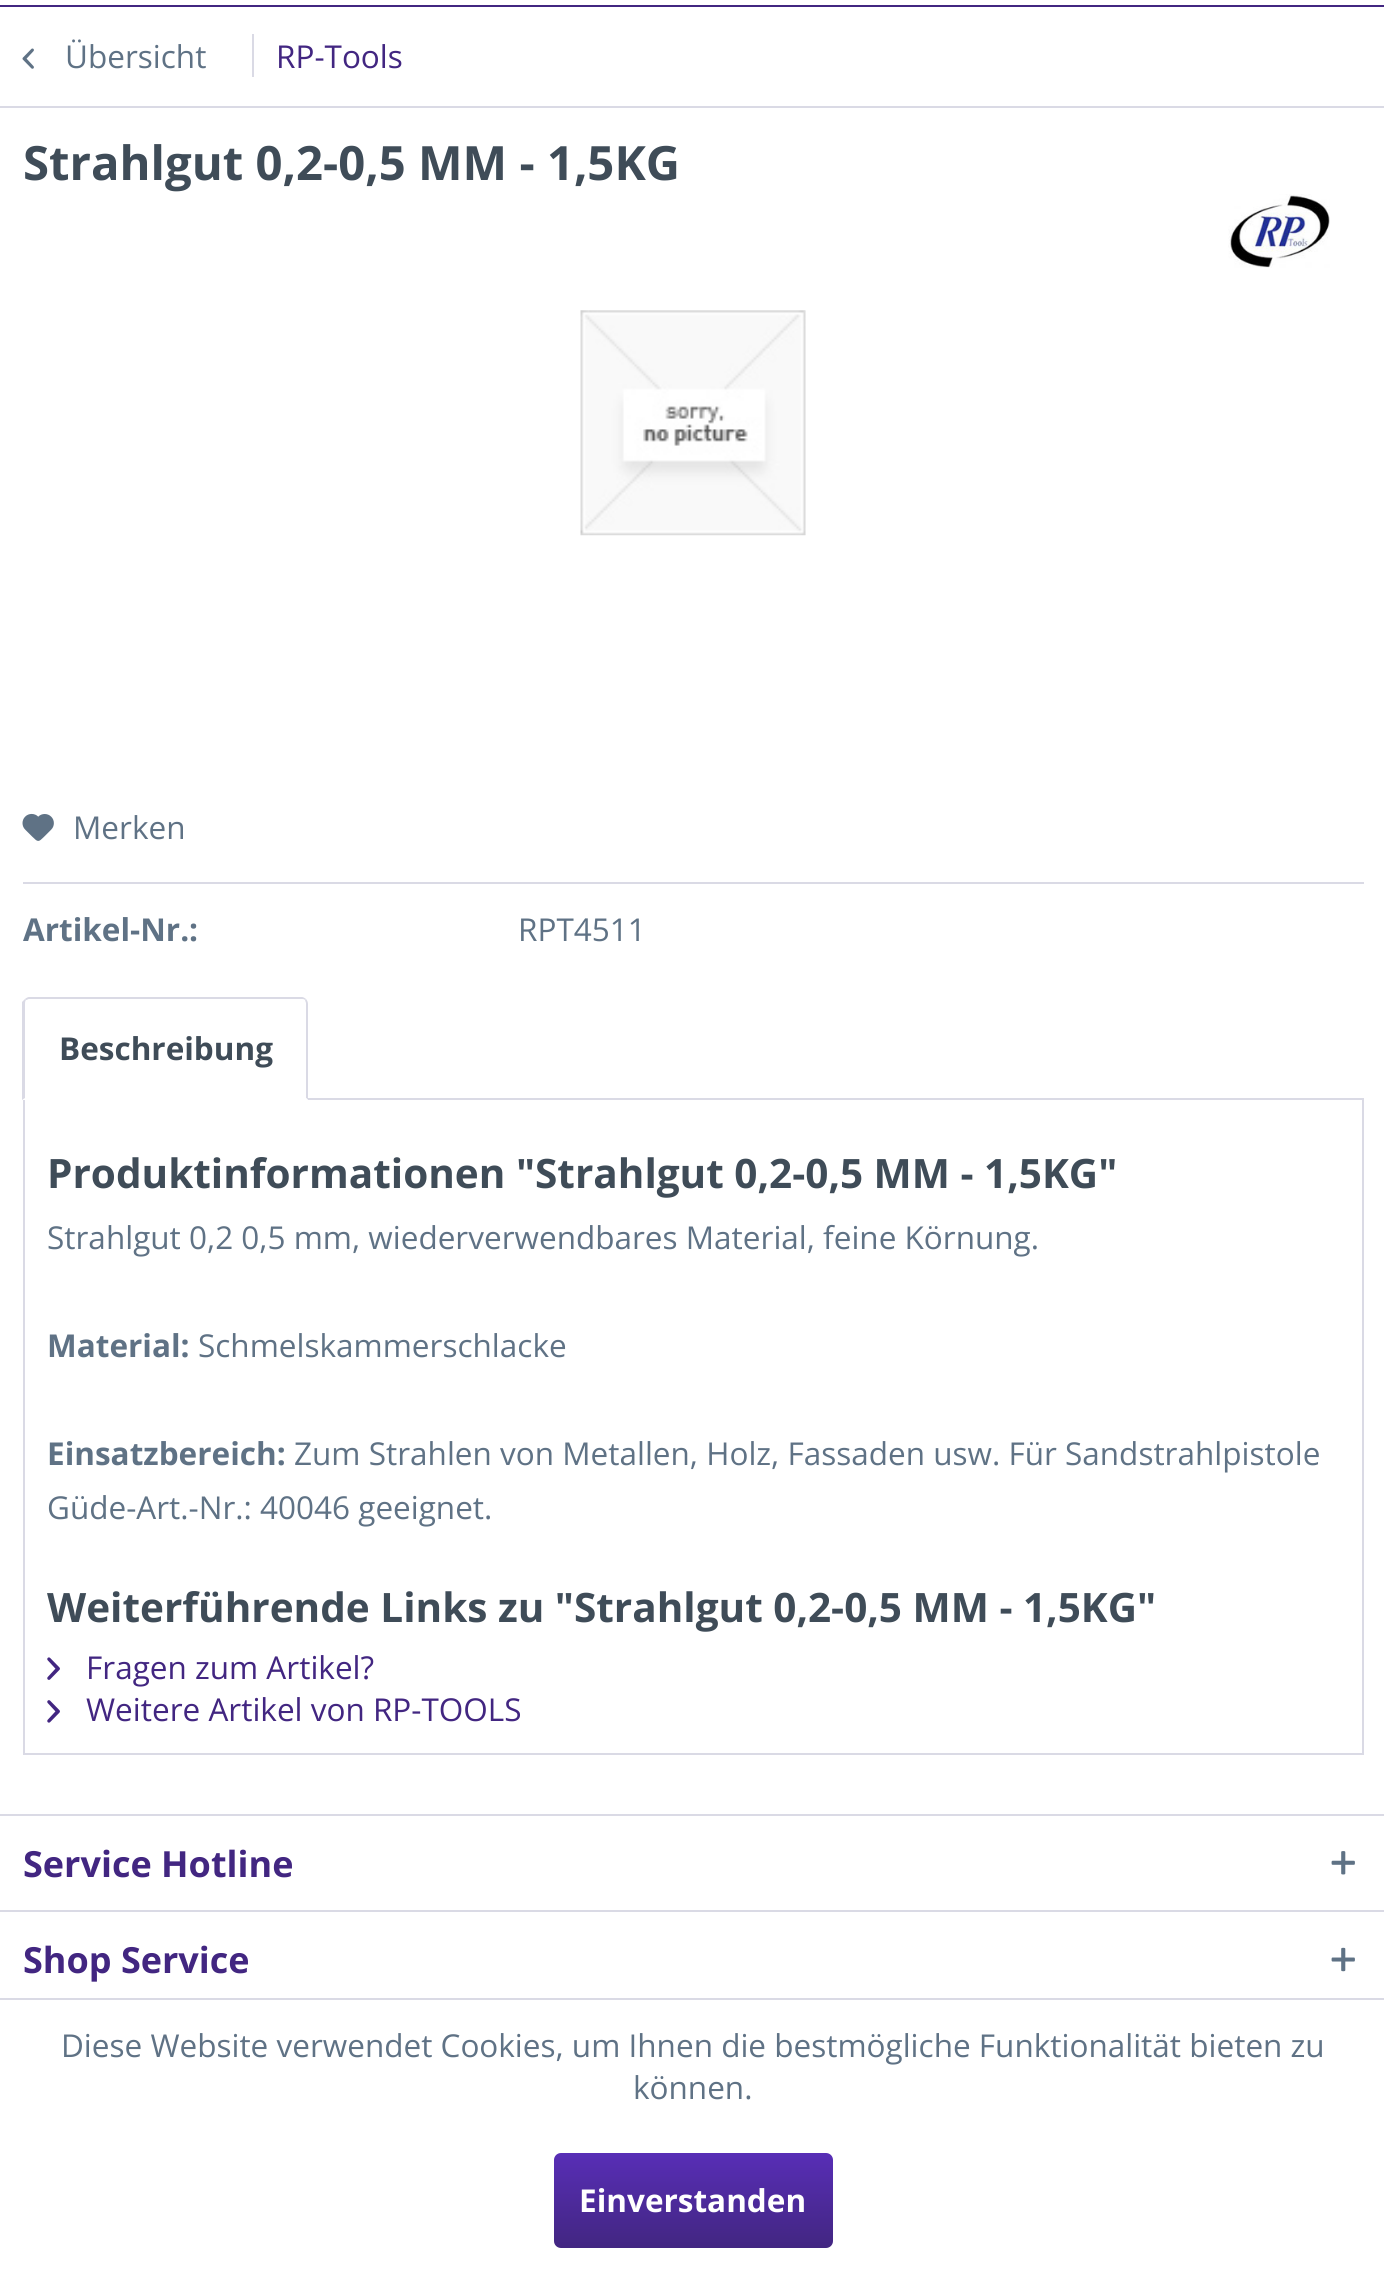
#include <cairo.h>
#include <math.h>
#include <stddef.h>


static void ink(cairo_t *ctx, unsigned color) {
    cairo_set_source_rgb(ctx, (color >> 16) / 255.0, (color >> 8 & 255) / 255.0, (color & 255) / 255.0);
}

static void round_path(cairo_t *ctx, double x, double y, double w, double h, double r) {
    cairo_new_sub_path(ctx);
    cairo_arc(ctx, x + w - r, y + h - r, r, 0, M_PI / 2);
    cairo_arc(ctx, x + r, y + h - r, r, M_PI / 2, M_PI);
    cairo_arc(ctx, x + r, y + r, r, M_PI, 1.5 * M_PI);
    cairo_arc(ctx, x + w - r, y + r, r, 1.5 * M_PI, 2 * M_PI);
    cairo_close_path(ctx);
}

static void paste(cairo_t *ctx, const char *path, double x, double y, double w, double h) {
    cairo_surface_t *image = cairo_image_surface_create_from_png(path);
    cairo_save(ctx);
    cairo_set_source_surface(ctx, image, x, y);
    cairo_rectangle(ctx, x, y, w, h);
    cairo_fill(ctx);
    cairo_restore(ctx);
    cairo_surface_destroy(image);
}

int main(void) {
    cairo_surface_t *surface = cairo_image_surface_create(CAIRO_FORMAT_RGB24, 1384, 2270);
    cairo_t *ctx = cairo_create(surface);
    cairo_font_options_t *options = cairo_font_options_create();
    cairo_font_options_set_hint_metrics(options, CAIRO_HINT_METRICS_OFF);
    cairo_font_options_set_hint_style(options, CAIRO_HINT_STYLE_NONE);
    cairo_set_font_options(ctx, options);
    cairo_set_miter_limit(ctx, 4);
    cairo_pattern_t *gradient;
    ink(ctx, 0xFFFFFF);
    cairo_paint(ctx);
    ink(ctx, 0x422681);
    cairo_rectangle(ctx, 0, 5, 1384, 2);
    cairo_fill(ctx);
    ink(ctx, 0xDADAE5);
    cairo_rectangle(ctx, 0, 106, 1384, 2);
    cairo_fill(ctx);
    paste(ctx, "media/1.png", 22, 48, 12, 21);
    cairo_select_font_face(ctx, "Open Sans", CAIRO_FONT_SLANT_NORMAL, CAIRO_FONT_WEIGHT_NORMAL);
    cairo_set_font_size(ctx, 31.5);
    ink(ctx, 0x5F7285);
    cairo_move_to(ctx, 65, 68);
    cairo_show_text(ctx, "Übersicht");
    ink(ctx, 0xDADAE5);
    cairo_rectangle(ctx, 252, 34, 2, 43);
    cairo_fill(ctx);
    ink(ctx, 0x422681);
    cairo_move_to(ctx, 276, 68);
    cairo_show_text(ctx, "RP-Tools");
    cairo_select_font_face(ctx, "Open Sans", CAIRO_FONT_SLANT_NORMAL, CAIRO_FONT_WEIGHT_BOLD);
    cairo_set_font_size(ctx, 47.25);
    ink(ctx, 0x3F4C58);
    cairo_move_to(ctx, 23, 180);
    cairo_show_text(ctx, "Strahlgut 0,2-0,5 MM - 1,5KG");
    paste(ctx, "media/2.png", 1228, 194, 102, 74);
    paste(ctx, "media/3.png", 580, 310, 226, 226);
    ink(ctx, 0xDADAE5);
    cairo_rectangle(ctx, 23, 882, 1341, 2);
    cairo_fill(ctx);
    paste(ctx, "media/4.png", 22, 813, 32, 28);
    cairo_select_font_face(ctx, "Open Sans", CAIRO_FONT_SLANT_NORMAL, CAIRO_FONT_WEIGHT_NORMAL);
    cairo_set_font_size(ctx, 31.5);
    ink(ctx, 0x5F7285);
    cairo_move_to(ctx, 73, 839);
    cairo_show_text(ctx, "Merken");
    cairo_select_font_face(ctx, "Open Sans", CAIRO_FONT_SLANT_NORMAL, CAIRO_FONT_WEIGHT_BOLD);
    cairo_move_to(ctx, 23, 941);
    cairo_show_text(ctx, "Artikel-Nr.:");
    cairo_select_font_face(ctx, "Open Sans", CAIRO_FONT_SLANT_NORMAL, CAIRO_FONT_WEIGHT_NORMAL);
    cairo_move_to(ctx, 518, 941);
    cairo_show_text(ctx, "RPT4511");
    cairo_rectangle(ctx, 24, 1099, 1339, 655);
    ink(ctx, 0xDADAE5);
    cairo_stroke(ctx);
    ink(ctx, 0xFFFFFF);
    cairo_new_path(ctx);
    cairo_move_to(ctx, 30, 997);
    cairo_line_to(ctx, 301, 997);
    cairo_curve_to(ctx, 305, 997, 308, 1000, 308, 1004);
    cairo_line_to(ctx, 308, 1100);
    cairo_line_to(ctx, 23, 1100);
    cairo_line_to(ctx, 23, 1004);
    cairo_curve_to(ctx, 23, 1000, 26, 997, 30, 997);
    cairo_close_path(ctx);
    cairo_fill(ctx);
    ink(ctx, 0xDADAE5);
    cairo_new_path(ctx);
    cairo_move_to(ctx, 29, 997);
    cairo_curve_to(ctx, 28, 997, 26, 998, 25, 999);
    cairo_line_to(ctx, 26, 1000);
    cairo_curve_to(ctx, 27, 1000, 28, 999, 29, 999);
    cairo_line_to(ctx, 302, 999);
    cairo_curve_to(ctx, 303, 999, 304, 999, 305, 1000);
    cairo_line_to(ctx, 306, 999);
    cairo_curve_to(ctx, 305, 998, 303, 997, 302, 997);
    cairo_close_path(ctx);
    cairo_fill(ctx);
    cairo_new_path(ctx);
    cairo_move_to(ctx, 308, 1100);
    cairo_line_to(ctx, 308, 1004);
    cairo_curve_to(ctx, 308, 1002, 307, 1000, 306, 999);
    cairo_line_to(ctx, 305, 1000);
    cairo_line_to(ctx, 306, 1003);
    cairo_line_to(ctx, 306, 1098);
    cairo_close_path(ctx);
    cairo_fill(ctx);
    ink(ctx, 0xFFFFFF);
    cairo_new_path(ctx);
    cairo_move_to(ctx, 308, 1100);
    cairo_line_to(ctx, 306, 1098);
    cairo_line_to(ctx, 25, 1098);
    cairo_line_to(ctx, 23, 1100);
    cairo_close_path(ctx);
    cairo_fill(ctx);
    ink(ctx, 0xDADAE5);
    cairo_new_path(ctx);
    cairo_move_to(ctx, 22, 1002);
    cairo_line_to(ctx, 25, 999);
    cairo_line_to(ctx, 26, 1000);
    cairo_curve_to(ctx, 25, 1001, 25, 1003, 25, 1004);
    cairo_line_to(ctx, 25, 1098);
    cairo_line_to(ctx, 22, 1100);
    cairo_close_path(ctx);
    cairo_fill(ctx);
    cairo_select_font_face(ctx, "Open Sans", CAIRO_FONT_SLANT_NORMAL, CAIRO_FONT_WEIGHT_BOLD);
    ink(ctx, 0x3F4C58);
    cairo_move_to(ctx, 59, 1060);
    cairo_show_text(ctx, "Beschreibung");
    cairo_set_font_size(ctx, 40.5);
    cairo_move_to(ctx, 47, 1188);
    cairo_show_text(ctx, "Produktinformationen \"Strahlgut 0,2-0,5 MM - 1,5KG\"");
    cairo_select_font_face(ctx, "Open Sans", CAIRO_FONT_SLANT_NORMAL, CAIRO_FONT_WEIGHT_NORMAL);
    cairo_set_font_size(ctx, 31.5);
    ink(ctx, 0x5F7285);
    cairo_move_to(ctx, 47, 1249);
    cairo_show_text(ctx, "Strahlgut 0,2 0,5 mm, wiederverwendbares Material, feine Körnung.");
    cairo_select_font_face(ctx, "Open Sans", CAIRO_FONT_SLANT_NORMAL, CAIRO_FONT_WEIGHT_BOLD);
    cairo_move_to(ctx, 47, 1357);
    cairo_show_text(ctx, "Material:");
    cairo_select_font_face(ctx, "Open Sans", CAIRO_FONT_SLANT_NORMAL, CAIRO_FONT_WEIGHT_NORMAL);
    cairo_move_to(ctx, 198, 1357);
    cairo_show_text(ctx, "Schmelskammerschlacke");
    cairo_select_font_face(ctx, "Open Sans", CAIRO_FONT_SLANT_NORMAL, CAIRO_FONT_WEIGHT_BOLD);
    cairo_move_to(ctx, 47, 1465);
    cairo_show_text(ctx, "Einsatzbereich:");
    cairo_select_font_face(ctx, "Open Sans", CAIRO_FONT_SLANT_NORMAL, CAIRO_FONT_WEIGHT_NORMAL);
    cairo_move_to(ctx, 294, 1465);
    cairo_show_text(ctx, "Zum Strahlen von Metallen, Holz, Fassaden usw. Für Sandstrahlpistole");
    cairo_move_to(ctx, 47, 1519);
    cairo_show_text(ctx, "Güde-Art.-Nr.: 40046 geeignet.");
    cairo_select_font_face(ctx, "Open Sans", CAIRO_FONT_SLANT_NORMAL, CAIRO_FONT_WEIGHT_BOLD);
    cairo_set_font_size(ctx, 40.5);
    ink(ctx, 0x3F4C58);
    cairo_move_to(ctx, 47, 1622);
    cairo_show_text(ctx, "Weiterführende Links zu \"Strahlgut 0,2-0,5 MM - 1,5KG\"");
    paste(ctx, "media/5.png", 47, 1657, 13, 23);
    cairo_select_font_face(ctx, "Open Sans", CAIRO_FONT_SLANT_NORMAL, CAIRO_FONT_WEIGHT_NORMAL);
    cairo_set_font_size(ctx, 31.5);
    ink(ctx, 0x422681);
    cairo_move_to(ctx, 86, 1679);
    cairo_show_text(ctx, "Fragen zum Artikel?");
    paste(ctx, "media/6.png", 47, 1700, 13, 23);
    cairo_move_to(ctx, 86, 1721);
    cairo_show_text(ctx, "Weitere Artikel von RP-TOOLS");
    ink(ctx, 0xDADAE5);
    cairo_rectangle(ctx, 0, 1814, 1384, 2);
    cairo_fill(ctx);
    cairo_select_font_face(ctx, "Open Sans", CAIRO_FONT_SLANT_NORMAL, CAIRO_FONT_WEIGHT_BOLD);
    cairo_set_font_size(ctx, 36);
    ink(ctx, 0x422681);
    cairo_move_to(ctx, 23, 1877);
    cairo_show_text(ctx, "Service Hotline");
    paste(ctx, "media/7.png", 1331, 1851, 24, 24);
    ink(ctx, 0xDADAE5);
    cairo_rectangle(ctx, 0, 1910, 1384, 2);
    cairo_fill(ctx);
    ink(ctx, 0x422681);
    cairo_move_to(ctx, 23, 1973);
    cairo_show_text(ctx, "Shop Service");
    paste(ctx, "media/8.png", 1331, 1947, 24, 25);
    ink(ctx, 0xDADAE5);
    cairo_rectangle(ctx, 0, 1998, 1384, 2);
    cairo_fill(ctx);
    cairo_select_font_face(ctx, "Open Sans", CAIRO_FONT_SLANT_NORMAL, CAIRO_FONT_WEIGHT_NORMAL);
    cairo_set_font_size(ctx, 31.5);
    ink(ctx, 0x5F7285);
    cairo_move_to(ctx, 61, 2057);
    cairo_show_text(ctx, "Diese Website verwendet Cookies, um Ihnen die bestmögliche Funktionalität bieten zu");
    cairo_move_to(ctx, 633, 2099);
    cairo_show_text(ctx, "können.");
    gradient = cairo_pattern_create_linear(693, 2153, 693, 2248);
    cairo_pattern_add_color_stop_rgba(gradient, 0, 0.345, 0.18, 0.714, 1);
    cairo_pattern_add_color_stop_rgba(gradient, 1, 0.259, 0.149, 0.506, 1);
    cairo_set_source(ctx, gradient);
    cairo_pattern_destroy(gradient);
    round_path(ctx, 554, 2153, 279, 95, 7);
    cairo_fill(ctx);
    cairo_select_font_face(ctx, "Open Sans", CAIRO_FONT_SLANT_NORMAL, CAIRO_FONT_WEIGHT_BOLD);
    ink(ctx, 0xFFFFFF);
    cairo_move_to(ctx, 579, 2212);
    cairo_show_text(ctx, "Einverstanden");
    cairo_surface_write_to_png(surface, "image.png");
    cairo_font_options_destroy(options);
    cairo_destroy(ctx);
    cairo_surface_destroy(surface);
    return 0;
}
